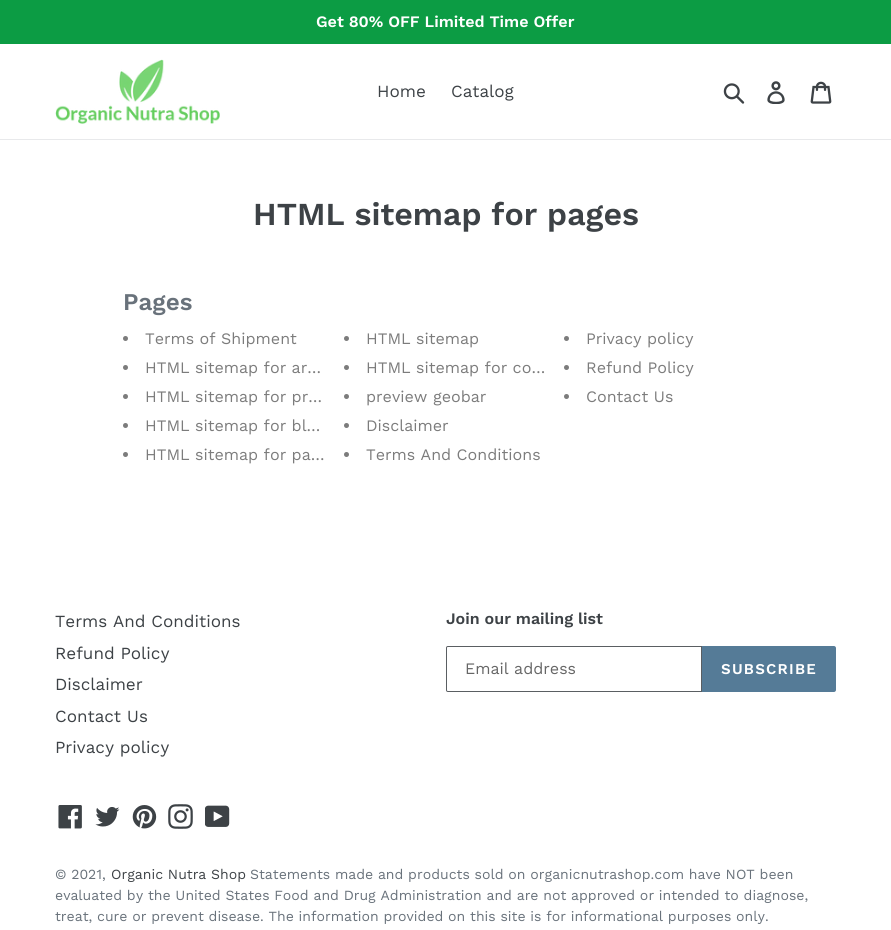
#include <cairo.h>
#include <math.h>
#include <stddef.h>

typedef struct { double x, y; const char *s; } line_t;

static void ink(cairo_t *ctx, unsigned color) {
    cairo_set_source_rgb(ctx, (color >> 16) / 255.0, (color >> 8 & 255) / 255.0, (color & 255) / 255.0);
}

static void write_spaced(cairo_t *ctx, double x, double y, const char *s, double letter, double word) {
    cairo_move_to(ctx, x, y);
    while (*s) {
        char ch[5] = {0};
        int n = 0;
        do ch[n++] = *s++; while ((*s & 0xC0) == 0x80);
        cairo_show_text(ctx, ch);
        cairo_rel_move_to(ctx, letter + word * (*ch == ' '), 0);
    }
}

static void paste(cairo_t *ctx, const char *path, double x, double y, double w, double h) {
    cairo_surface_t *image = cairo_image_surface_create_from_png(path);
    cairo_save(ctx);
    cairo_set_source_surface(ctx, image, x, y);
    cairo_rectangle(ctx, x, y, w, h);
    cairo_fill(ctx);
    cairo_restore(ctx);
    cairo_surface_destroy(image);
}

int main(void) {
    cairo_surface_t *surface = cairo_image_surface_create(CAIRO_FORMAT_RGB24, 891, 930);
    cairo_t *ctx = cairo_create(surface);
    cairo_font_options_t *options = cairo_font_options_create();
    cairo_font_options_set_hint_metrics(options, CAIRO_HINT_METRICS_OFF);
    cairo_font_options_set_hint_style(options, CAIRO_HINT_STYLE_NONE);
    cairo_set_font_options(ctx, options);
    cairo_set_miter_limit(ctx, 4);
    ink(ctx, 0xFFFFFF);
    cairo_paint(ctx);
    ink(ctx, 0x0C9C44);
    cairo_rectangle(ctx, 0, 0, 891, 44);
    cairo_fill(ctx);
    cairo_select_font_face(ctx, "Work Sans SemiBold", CAIRO_FONT_SLANT_NORMAL, CAIRO_FONT_WEIGHT_NORMAL);
    cairo_set_font_size(ctx, 16);
    ink(ctx, 0xFFFFFF);
    cairo_move_to(ctx, 316, 27);
    cairo_show_text(ctx, "Get 80% OFF Limited Time Offer");
    ink(ctx, 0xE8E9EB);
    cairo_rectangle(ctx, 0, 139, 891, 1);
    cairo_fill(ctx);
    paste(ctx, "media/1.png", 55, 59, 165, 65);
    cairo_select_font_face(ctx, "Work Sans", CAIRO_FONT_SLANT_NORMAL, CAIRO_FONT_WEIGHT_NORMAL);
    cairo_set_font_size(ctx, 17);
    ink(ctx, 0x3D4246);
    cairo_move_to(ctx, 377, 97);
    cairo_show_text(ctx, "Home");
    cairo_move_to(ctx, 451, 97);
    cairo_show_text(ctx, "Catalog");
    paste(ctx, "media/2.png", 723, 83, 22, 21);
    paste(ctx, "media/3.png", 767, 81, 18, 23);
    paste(ctx, "media/4.png", 810, 81, 22, 23);
    cairo_select_font_face(ctx, "Work Sans SemiBold", CAIRO_FONT_SLANT_NORMAL, CAIRO_FONT_WEIGHT_NORMAL);
    cairo_set_font_size(ctx, 32);
    cairo_move_to(ctx, 253, 225);
    cairo_show_text(ctx, "HTML sitemap for pages");
    cairo_set_font_size(ctx, 24);
    ink(ctx, 0x69727B);
    cairo_move_to(ctx, 123, 310);
    cairo_show_text(ctx, "Pages");
    ink(ctx, 0x7C7C7C);
    cairo_new_path(ctx);
    cairo_arc(ctx, 125.5, 338.5, 2.5, 0, 2 * M_PI);
    cairo_fill(ctx);
    cairo_select_font_face(ctx, "Work Sans", CAIRO_FONT_SLANT_NORMAL, CAIRO_FONT_WEIGHT_NORMAL);
    cairo_set_font_size(ctx, 16);
    cairo_move_to(ctx, 145, 344);
    cairo_show_text(ctx, "Terms of Shipment");
    cairo_new_path(ctx);
    cairo_arc(ctx, 346.5, 338.5, 2.5, 0, 2 * M_PI);
    cairo_fill(ctx);
    cairo_move_to(ctx, 366, 344);
    cairo_show_text(ctx, "HTML sitemap");
    cairo_new_path(ctx);
    cairo_arc(ctx, 566.5, 338.5, 2.5, 0, 2 * M_PI);
    cairo_fill(ctx);
    cairo_move_to(ctx, 586, 344);
    cairo_show_text(ctx, "Privacy policy");
    cairo_new_path(ctx);
    cairo_arc(ctx, 125.5, 367.5, 2.5, 0, 2 * M_PI);
    cairo_fill(ctx);
    cairo_move_to(ctx, 145, 373);
    cairo_show_text(ctx, "HTML sitemap for ar…");
    cairo_new_path(ctx);
    cairo_arc(ctx, 346.5, 367.5, 2.5, 0, 2 * M_PI);
    cairo_fill(ctx);
    cairo_move_to(ctx, 366, 373);
    cairo_show_text(ctx, "HTML sitemap for co…");
    cairo_new_path(ctx);
    cairo_arc(ctx, 566.5, 367.5, 2.5, 0, 2 * M_PI);
    cairo_fill(ctx);
    cairo_move_to(ctx, 586, 373);
    cairo_show_text(ctx, "Refund Policy");
    cairo_new_path(ctx);
    cairo_arc(ctx, 125.5, 396.5, 2.5, 0, 2 * M_PI);
    cairo_fill(ctx);
    cairo_move_to(ctx, 145, 402);
    cairo_show_text(ctx, "HTML sitemap for pr…");
    cairo_new_path(ctx);
    cairo_arc(ctx, 346.5, 396.5, 2.5, 0, 2 * M_PI);
    cairo_fill(ctx);
    cairo_move_to(ctx, 366, 402);
    cairo_show_text(ctx, "preview geobar");
    cairo_new_path(ctx);
    cairo_arc(ctx, 566.5, 396.5, 2.5, 0, 2 * M_PI);
    cairo_fill(ctx);
    cairo_move_to(ctx, 586, 402);
    cairo_show_text(ctx, "Contact Us");
    cairo_new_path(ctx);
    cairo_arc(ctx, 125.5, 425.5, 2.5, 0, 2 * M_PI);
    cairo_fill(ctx);
    cairo_move_to(ctx, 145, 431);
    cairo_show_text(ctx, "HTML sitemap for bl…");
    cairo_new_path(ctx);
    cairo_arc(ctx, 346.5, 425.5, 2.5, 0, 2 * M_PI);
    cairo_fill(ctx);
    cairo_move_to(ctx, 366, 431);
    cairo_show_text(ctx, "Disclaimer");
    cairo_new_path(ctx);
    cairo_arc(ctx, 125.5, 454.5, 2.5, 0, 2 * M_PI);
    cairo_fill(ctx);
    cairo_move_to(ctx, 145, 460);
    cairo_show_text(ctx, "HTML sitemap for pa…");
    cairo_new_path(ctx);
    cairo_arc(ctx, 346.5, 454.5, 2.5, 0, 2 * M_PI);
    cairo_fill(ctx);
    cairo_move_to(ctx, 366, 460);
    cairo_show_text(ctx, "Terms And Conditions");
    cairo_set_font_size(ctx, 17);
    ink(ctx, 0x3D4246);
    {
        static const line_t items[] = {
            {55, 627, "Terms And Conditions"},
            {55, 659, "Refund Policy"},
            {55, 690, "Disclaimer"},
            {55, 722, "Contact Us"},
            {55, 753, "Privacy policy"},
        };
        for (size_t i = 0; i < sizeof items / sizeof *items; i++) {
            cairo_move_to(ctx, items[i].x, items[i].y);
            cairo_show_text(ctx, items[i].s);
        }
    }
    cairo_select_font_face(ctx, "Work Sans SemiBold", CAIRO_FONT_SLANT_NORMAL, CAIRO_FONT_WEIGHT_NORMAL);
    cairo_set_font_size(ctx, 16);
    cairo_move_to(ctx, 446, 624);
    cairo_show_text(ctx, "Join our mailing list");
    cairo_new_path(ctx);
    cairo_move_to(ctx, 448, 646.5);
    cairo_line_to(ctx, 701.5, 646.5);
    cairo_line_to(ctx, 701.5, 691.5);
    cairo_line_to(ctx, 448, 691.5);
    cairo_curve_to(ctx, 447, 691.5, 446.5, 691, 446.5, 690);
    cairo_line_to(ctx, 446.5, 648);
    cairo_curve_to(ctx, 446.5, 647, 447, 646.5, 448, 646.5);
    cairo_close_path(ctx);
    ink(ctx, 0x5A5E62);
    cairo_set_line_width(ctx, 1);
    cairo_stroke(ctx);
    cairo_select_font_face(ctx, "Work Sans", CAIRO_FONT_SLANT_NORMAL, CAIRO_FONT_WEIGHT_NORMAL);
    ink(ctx, 0x666666);
    cairo_move_to(ctx, 465, 674);
    cairo_show_text(ctx, "Email address");
    ink(ctx, 0x557B97);
    cairo_new_path(ctx);
    cairo_move_to(ctx, 702, 646);
    cairo_line_to(ctx, 834, 646);
    cairo_curve_to(ctx, 835, 646, 836, 647, 836, 648);
    cairo_line_to(ctx, 836, 690);
    cairo_curve_to(ctx, 836, 691, 835, 692, 834, 692);
    cairo_line_to(ctx, 702, 692);
    cairo_close_path(ctx);
    cairo_fill(ctx);
    cairo_select_font_face(ctx, "Work Sans SemiBold", CAIRO_FONT_SLANT_NORMAL, CAIRO_FONT_WEIGHT_NORMAL);
    cairo_set_font_size(ctx, 15);
    ink(ctx, 0xFFFFFF);
    write_spaced(ctx, 721, 674, "SUBSCRIBE", 1.25, 0);
    paste(ctx, "media/5.png", 58, 805, 24, 24);
    paste(ctx, "media/6.png", 95, 807, 25, 20);
    paste(ctx, "media/7.png", 132, 805, 25, 24);
    paste(ctx, "media/8.png", 168, 804, 25, 25);
    paste(ctx, "media/9.png", 205, 805, 25, 22);
    cairo_select_font_face(ctx, "Work Sans", CAIRO_FONT_SLANT_NORMAL, CAIRO_FONT_WEIGHT_NORMAL);
    cairo_set_font_size(ctx, 14);
    ink(ctx, 0x69727B);
    cairo_move_to(ctx, 55, 879);
    cairo_show_text(ctx, "© 2021,");
    ink(ctx, 0x3D4246);
    cairo_move_to(ctx, 111, 879);
    cairo_show_text(ctx, "Organic Nutra Shop");
    ink(ctx, 0x69727B);
    {
        static const line_t items[] = {
            {250, 879, "Statements made and products sold on organicnutrashop.com have NOT been"},
            {55, 900, "evaluated by the United States Food and Drug Administration and are not approved or intended to diagnose,"},
            {55, 921, "treat, cure or prevent disease. The information provided on this site is for informational purposes only."},
        };
        for (size_t i = 0; i < sizeof items / sizeof *items; i++) {
            cairo_move_to(ctx, items[i].x, items[i].y);
            cairo_show_text(ctx, items[i].s);
        }
    }
    cairo_surface_write_to_png(surface, "image.png");
    cairo_font_options_destroy(options);
    cairo_destroy(ctx);
    cairo_surface_destroy(surface);
    return 0;
}
